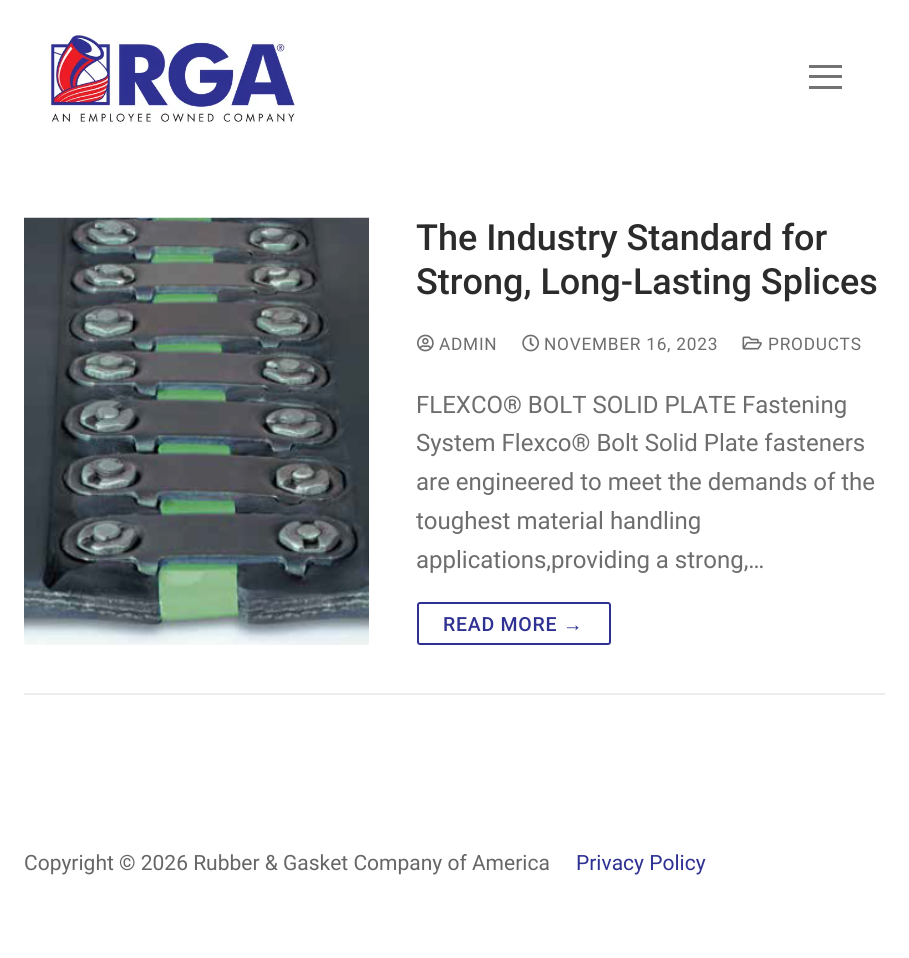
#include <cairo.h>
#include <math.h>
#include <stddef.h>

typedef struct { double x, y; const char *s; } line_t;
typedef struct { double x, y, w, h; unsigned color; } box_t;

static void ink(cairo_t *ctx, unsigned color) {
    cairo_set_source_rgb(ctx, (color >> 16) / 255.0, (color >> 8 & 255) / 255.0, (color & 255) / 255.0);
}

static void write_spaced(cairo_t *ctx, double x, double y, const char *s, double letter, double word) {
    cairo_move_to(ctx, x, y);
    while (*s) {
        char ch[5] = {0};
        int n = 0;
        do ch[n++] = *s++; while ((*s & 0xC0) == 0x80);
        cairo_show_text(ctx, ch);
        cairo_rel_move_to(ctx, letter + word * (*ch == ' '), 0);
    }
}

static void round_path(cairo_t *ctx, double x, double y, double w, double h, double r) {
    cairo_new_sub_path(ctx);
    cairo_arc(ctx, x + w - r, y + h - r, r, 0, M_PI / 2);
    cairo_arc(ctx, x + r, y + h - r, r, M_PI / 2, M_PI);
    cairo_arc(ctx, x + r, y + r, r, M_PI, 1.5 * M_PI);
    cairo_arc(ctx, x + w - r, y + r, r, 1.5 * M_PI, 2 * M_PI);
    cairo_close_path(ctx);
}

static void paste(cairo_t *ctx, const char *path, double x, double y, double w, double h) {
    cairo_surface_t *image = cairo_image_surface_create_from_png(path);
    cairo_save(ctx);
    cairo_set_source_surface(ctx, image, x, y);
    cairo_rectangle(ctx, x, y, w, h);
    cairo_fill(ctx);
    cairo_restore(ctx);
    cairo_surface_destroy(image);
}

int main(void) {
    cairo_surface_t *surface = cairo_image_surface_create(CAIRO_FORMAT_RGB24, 909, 958);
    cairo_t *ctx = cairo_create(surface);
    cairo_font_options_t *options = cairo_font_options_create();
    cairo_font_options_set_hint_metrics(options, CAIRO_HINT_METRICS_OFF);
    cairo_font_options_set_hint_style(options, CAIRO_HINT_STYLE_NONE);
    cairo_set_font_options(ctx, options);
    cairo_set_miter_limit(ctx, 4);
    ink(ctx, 0xFFFFFF);
    cairo_paint(ctx);
    paste(ctx, "media/1.png", 49, 34, 246, 90);
    {
        static const box_t items[] = {
            {809, 75, 33, 3, 0x737373},
            {809, 65, 33, 3, 0x737373},
            {809, 86, 33, 3, 0x737373},
            {24, 693, 861, 2, 0xEAECEE},
        };
        for (size_t i = 0; i < sizeof items / sizeof *items; i++) {
            ink(ctx, items[i].color);
            cairo_rectangle(ctx, items[i].x, items[i].y, items[i].w, items[i].h);
            cairo_fill(ctx);
        }
    }
    paste(ctx, "media/2.png", 24, 217, 345, 428);
    cairo_select_font_face(ctx, "Roboto Medium", CAIRO_FONT_SLANT_NORMAL, CAIRO_FONT_WEIGHT_NORMAL);
    cairo_set_font_size(ctx, 36);
    ink(ctx, 0x2B2B2B);
    cairo_move_to(ctx, 416, 250);
    cairo_show_text(ctx, "The Industry Standard for");
    cairo_move_to(ctx, 416, 294);
    cairo_show_text(ctx, "Strong, Long-Lasting Splices");
    paste(ctx, "media/3.png", 417, 334, 17, 18);
    cairo_select_font_face(ctx, "Roboto", CAIRO_FONT_SLANT_NORMAL, CAIRO_FONT_WEIGHT_NORMAL);
    cairo_set_font_size(ctx, 17.25);
    ink(ctx, 0x6D6D6D);
    write_spaced(ctx, 439, 350, "ADMIN", 0.75, 0);
    paste(ctx, "media/4.png", 522, 334, 17, 18);
    write_spaced(ctx, 544, 350, "NOVEMBER 16, 2023", 0.75, 0);
    paste(ctx, "media/5.png", 742, 336, 20, 14);
    write_spaced(ctx, 768, 350, "PRODUCTS", 0.75, 0);
    cairo_set_font_size(ctx, 24);
    {
        static const line_t items[] = {
            {416, 413, "FLEXCO® BOLT SOLID PLATE Fastening"},
            {416, 451, "System Flexco® Bolt Solid Plate fasteners"},
            {416, 490, "are engineered to meet the demands of the"},
            {416, 529, "toughest material handling"},
            {416, 568, "applications,providing a strong,…"},
        };
        for (size_t i = 0; i < sizeof items / sizeof *items; i++) {
            cairo_move_to(ctx, items[i].x, items[i].y);
            cairo_show_text(ctx, items[i].s);
        }
    }
    round_path(ctx, 418, 603, 192, 41, 2);
    ink(ctx, 0x2E3192);
    cairo_stroke(ctx);
    cairo_select_font_face(ctx, "Roboto Medium", CAIRO_FONT_SLANT_NORMAL, CAIRO_FONT_WEIGHT_NORMAL);
    cairo_set_font_size(ctx, 19.5);
    write_spaced(ctx, 443, 631, "READ MORE", 0.75, 0);
    cairo_select_font_face(ctx, "Liberation Sans", CAIRO_FONT_SLANT_NORMAL, CAIRO_FONT_WEIGHT_NORMAL);
    write_spaced(ctx, 563, 631, "→", 0.75, 0);
    cairo_select_font_face(ctx, "Roboto", CAIRO_FONT_SLANT_NORMAL, CAIRO_FONT_WEIGHT_NORMAL);
    cairo_set_font_size(ctx, 21);
    ink(ctx, 0x666666);
    cairo_move_to(ctx, 24, 870);
    cairo_show_text(ctx, "Copyright © 2026 Rubber & Gasket Company of America");
    ink(ctx, 0x2E3192);
    cairo_move_to(ctx, 576, 870);
    cairo_show_text(ctx, "Privacy Policy");
    cairo_surface_write_to_png(surface, "image.png");
    cairo_font_options_destroy(options);
    cairo_destroy(ctx);
    cairo_surface_destroy(surface);
    return 0;
}
